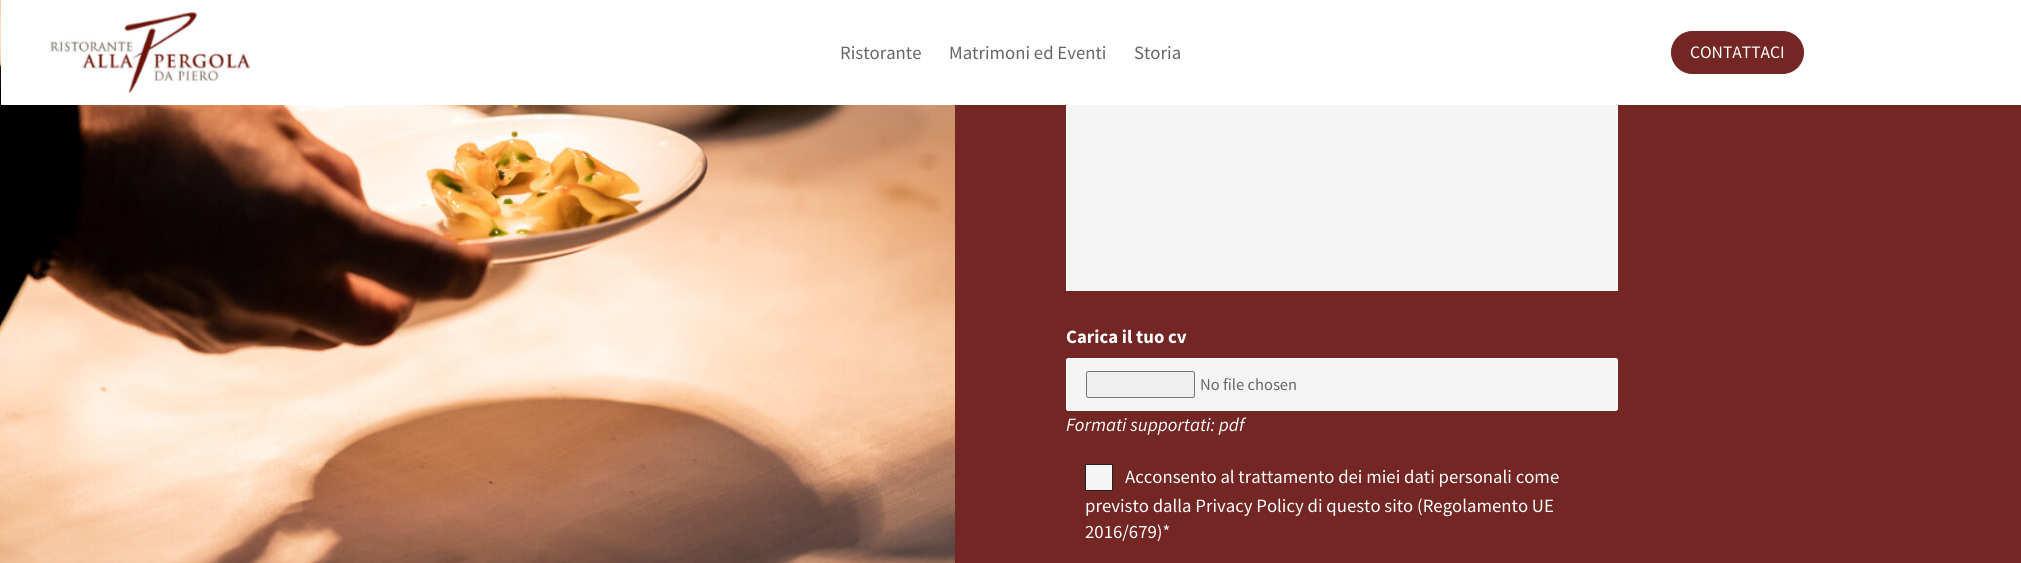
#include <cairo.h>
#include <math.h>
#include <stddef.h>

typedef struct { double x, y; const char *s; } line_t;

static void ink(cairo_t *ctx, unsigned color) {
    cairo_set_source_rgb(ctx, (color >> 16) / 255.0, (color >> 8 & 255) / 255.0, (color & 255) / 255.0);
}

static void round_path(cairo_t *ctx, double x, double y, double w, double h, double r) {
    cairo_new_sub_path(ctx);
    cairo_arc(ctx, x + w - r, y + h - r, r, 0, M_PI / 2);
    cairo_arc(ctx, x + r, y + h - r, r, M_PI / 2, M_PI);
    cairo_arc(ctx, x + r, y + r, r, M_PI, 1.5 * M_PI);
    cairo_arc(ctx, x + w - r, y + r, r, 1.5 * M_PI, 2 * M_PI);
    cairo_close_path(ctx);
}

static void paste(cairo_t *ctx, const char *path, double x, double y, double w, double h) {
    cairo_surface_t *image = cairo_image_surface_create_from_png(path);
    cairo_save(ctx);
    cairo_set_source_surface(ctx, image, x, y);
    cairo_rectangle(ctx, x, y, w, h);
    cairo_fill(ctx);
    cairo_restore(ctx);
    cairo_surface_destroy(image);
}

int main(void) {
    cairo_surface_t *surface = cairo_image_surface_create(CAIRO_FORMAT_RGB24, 2021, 563);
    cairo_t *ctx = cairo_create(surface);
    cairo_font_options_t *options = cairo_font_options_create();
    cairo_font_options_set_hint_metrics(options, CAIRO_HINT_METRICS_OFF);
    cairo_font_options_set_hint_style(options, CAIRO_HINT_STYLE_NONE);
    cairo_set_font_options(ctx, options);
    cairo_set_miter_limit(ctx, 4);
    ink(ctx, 0x732623);
    cairo_paint(ctx);
    paste(ctx, "media/2.png", 0, 0, 955, 563);
    ink(ctx, 0xF5F5F5);
    cairo_rectangle(ctx, 1067, 105, 550, 185);
    cairo_fill(ctx);
    cairo_rectangle(ctx, 1066.5, 51.5, 551, 239);
    ink(ctx, 0xFFFFFF);
    cairo_set_line_width(ctx, 1);
    cairo_stroke(ctx);
    cairo_rectangle(ctx, 1, 0, 2020, 105);
    cairo_fill(ctx);
    paste(ctx, "media/1.png", 50, 12, 201, 81);
    cairo_select_font_face(ctx, "Source Sans Pro", CAIRO_FONT_SLANT_NORMAL, CAIRO_FONT_WEIGHT_NORMAL);
    cairo_set_font_size(ctx, 18.75);
    ink(ctx, 0x666666);
    {
        static const line_t items[] = {
            {840, 59, "Ristorante"},
            {949, 59, "Matrimoni ed Eventi"},
            {1134, 59, "Storia"},
        };
        for (size_t i = 0; i < sizeof items / sizeof *items; i++) {
            cairo_move_to(ctx, items[i].x, items[i].y);
            cairo_show_text(ctx, items[i].s);
        }
    }
    ink(ctx, 0x732623);
    round_path(ctx, 1671.5, 31.5, 132, 42, 21);
    cairo_fill_preserve(ctx);
    cairo_stroke(ctx);
    cairo_set_font_size(ctx, 17.5);
    ink(ctx, 0xFFFFFF);
    cairo_move_to(ctx, 1690, 58);
    cairo_show_text(ctx, "CONTATTACI");
    cairo_select_font_face(ctx, "Source Sans Pro", CAIRO_FONT_SLANT_NORMAL, CAIRO_FONT_WEIGHT_BOLD);
    cairo_set_font_size(ctx, 18.75);
    cairo_move_to(ctx, 1066, 343);
    cairo_show_text(ctx, "Carica il tuo cv");
    ink(ctx, 0xF5F5F5);
    round_path(ctx, 1066.5, 358.5, 551, 52, 2);
    cairo_fill_preserve(ctx);
    ink(ctx, 0xFFFFFF);
    cairo_stroke(ctx);
    ink(ctx, 0xEFEFEF);
    round_path(ctx, 1086.5, 371.5, 108, 26, 2);
    cairo_fill_preserve(ctx);
    ink(ctx, 0x767676);
    cairo_stroke(ctx);
    cairo_select_font_face(ctx, "Source Sans Pro", CAIRO_FONT_SLANT_NORMAL, CAIRO_FONT_WEIGHT_NORMAL);
    cairo_set_font_size(ctx, 16.5);
    ink(ctx, 0x666666);
    cairo_move_to(ctx, 1200, 390);
    cairo_show_text(ctx, "No file chosen");
    cairo_select_font_face(ctx, "Source Sans Pro", CAIRO_FONT_SLANT_ITALIC, CAIRO_FONT_WEIGHT_NORMAL);
    cairo_set_font_size(ctx, 18.75);
    ink(ctx, 0xFFFFFF);
    cairo_move_to(ctx, 1066, 431);
    cairo_show_text(ctx, "Formati supportati: pdf");
    ink(ctx, 0xF5F5F5);
    cairo_rectangle(ctx, 1085.5, 464.5, 27, 26);
    cairo_fill_preserve(ctx);
    ink(ctx, 0x222222);
    cairo_stroke(ctx);
    cairo_select_font_face(ctx, "Source Sans Pro", CAIRO_FONT_SLANT_NORMAL, CAIRO_FONT_WEIGHT_NORMAL);
    ink(ctx, 0xFFFFFF);
    {
        static const line_t items[] = {
            {1125, 483, "Acconsento al trattamento dei miei dati personali come"},
            {1085, 512, "previsto dalla Privacy Policy di questo sito (Regolamento UE"},
            {1085, 538, "2016/679)*"},
        };
        for (size_t i = 0; i < sizeof items / sizeof *items; i++) {
            cairo_move_to(ctx, items[i].x, items[i].y);
            cairo_show_text(ctx, items[i].s);
        }
    }
    cairo_surface_write_to_png(surface, "image.png");
    cairo_font_options_destroy(options);
    cairo_destroy(ctx);
    cairo_surface_destroy(surface);
    return 0;
}
